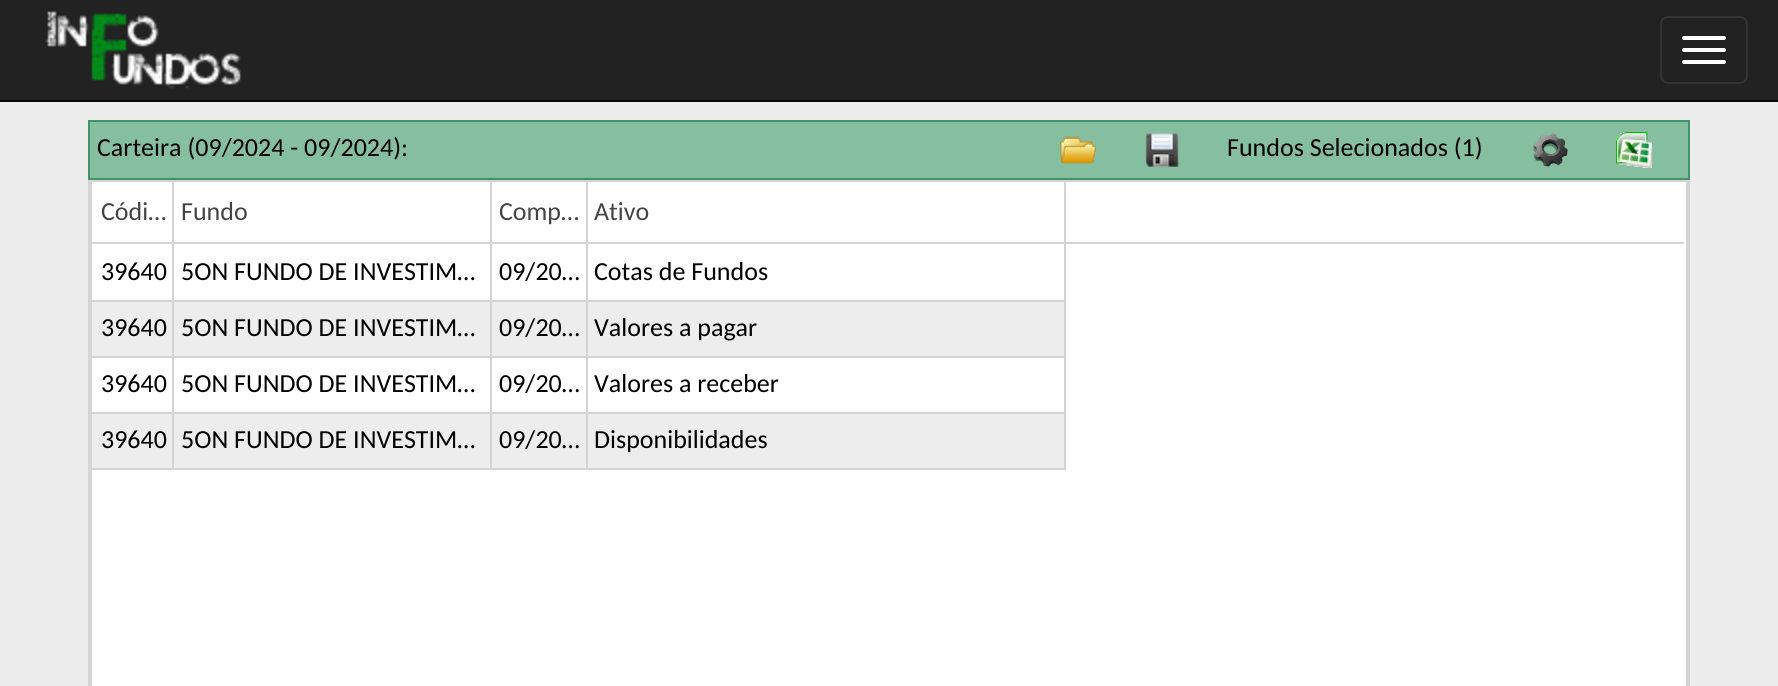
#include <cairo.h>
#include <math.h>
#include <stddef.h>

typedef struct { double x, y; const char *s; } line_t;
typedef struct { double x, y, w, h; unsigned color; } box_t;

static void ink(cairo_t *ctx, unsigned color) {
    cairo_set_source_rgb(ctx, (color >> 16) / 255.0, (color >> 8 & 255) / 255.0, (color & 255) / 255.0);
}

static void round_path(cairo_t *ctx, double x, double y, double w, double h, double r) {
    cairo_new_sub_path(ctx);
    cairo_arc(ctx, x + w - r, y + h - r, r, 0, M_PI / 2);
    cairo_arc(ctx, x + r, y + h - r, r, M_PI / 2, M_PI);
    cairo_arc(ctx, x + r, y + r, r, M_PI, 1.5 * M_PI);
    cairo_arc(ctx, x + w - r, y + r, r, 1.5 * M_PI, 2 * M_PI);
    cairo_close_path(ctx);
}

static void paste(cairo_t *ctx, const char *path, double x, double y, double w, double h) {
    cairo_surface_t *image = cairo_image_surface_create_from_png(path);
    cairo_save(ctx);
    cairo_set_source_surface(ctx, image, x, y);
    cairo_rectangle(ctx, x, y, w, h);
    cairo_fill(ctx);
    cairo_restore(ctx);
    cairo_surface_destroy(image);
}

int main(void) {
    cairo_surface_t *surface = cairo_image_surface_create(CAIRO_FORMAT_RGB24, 1778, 686);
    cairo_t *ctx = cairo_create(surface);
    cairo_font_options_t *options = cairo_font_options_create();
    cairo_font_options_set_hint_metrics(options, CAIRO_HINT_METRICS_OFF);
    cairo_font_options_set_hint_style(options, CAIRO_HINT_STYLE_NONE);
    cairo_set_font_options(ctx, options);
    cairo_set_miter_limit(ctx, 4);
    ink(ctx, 0xECECEC);
    cairo_paint(ctx);
    ink(ctx, 0x222222);
    cairo_rectangle(ctx, 0, 0, 1778, 100);
    cairo_fill(ctx);
    ink(ctx, 0x080808);
    cairo_rectangle(ctx, 0, 100, 1778, 2);
    cairo_fill(ctx);
    paste(ctx, "media/1.png", 45, 11, 196, 78);
    round_path(ctx, 1661, 17, 86, 66, 7);
    ink(ctx, 0x333333);
    cairo_stroke(ctx);
    ink(ctx, 0xFFFFFF);
    round_path(ctx, 1682, 36, 44, 4, 2);
    cairo_fill(ctx);
    round_path(ctx, 1682, 48, 44, 4, 2);
    cairo_fill(ctx);
    round_path(ctx, 1682, 60, 44, 4, 2);
    cairo_fill(ctx);
    ink(ctx, 0x86BFA0);
    cairo_rectangle(ctx, 89, 121, 1600, 58);
    cairo_fill_preserve(ctx);
    ink(ctx, 0x429366);
    cairo_stroke(ctx);
    cairo_select_font_face(ctx, "Carlito", CAIRO_FONT_SLANT_NORMAL, CAIRO_FONT_WEIGHT_NORMAL);
    cairo_set_font_size(ctx, 26);
    ink(ctx, 0x000000);
    cairo_move_to(ctx, 97, 156);
    cairo_show_text(ctx, "Carteira (09/2024 - 09/2024):");
    paste(ctx, "media/2.png", 1060, 136, 36, 28);
    paste(ctx, "media/3.png", 1145, 133, 34, 35);
    cairo_move_to(ctx, 1227, 156);
    cairo_show_text(ctx, "Fundos Selecionados (1)");
    paste(ctx, "media/4.png", 1532, 133, 36, 34);
    paste(ctx, "media/5.png", 1616, 132, 36, 36);
    ink(ctx, 0xD4D4D4);
    cairo_rectangle(ctx, 1688, 180, 2, 506);
    cairo_fill(ctx);
    cairo_rectangle(ctx, 88, 180, 2, 506);
    cairo_fill(ctx);
    ink(ctx, 0xFFFFFF);
    cairo_rectangle(ctx, 91, 181, 1596, 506);
    cairo_fill_preserve(ctx);
    ink(ctx, 0xD4D4D4);
    cairo_stroke(ctx);
    cairo_rectangle(ctx, 92, 242, 1592, 2);
    cairo_fill(ctx);
    cairo_rectangle(ctx, 172, 182, 2, 60);
    cairo_fill(ctx);
    ink(ctx, 0x444444);
    cairo_move_to(ctx, 101, 220);
    cairo_show_text(ctx, "Códi…");
    ink(ctx, 0xD4D4D4);
    cairo_rectangle(ctx, 490, 182, 2, 60);
    cairo_fill(ctx);
    ink(ctx, 0x444444);
    cairo_move_to(ctx, 181, 220);
    cairo_show_text(ctx, "Fundo");
    ink(ctx, 0xD4D4D4);
    cairo_rectangle(ctx, 586, 182, 2, 60);
    cairo_fill(ctx);
    ink(ctx, 0x444444);
    cairo_move_to(ctx, 499, 220);
    cairo_show_text(ctx, "Comp…");
    ink(ctx, 0xD4D4D4);
    cairo_rectangle(ctx, 1064, 182, 2, 60);
    cairo_fill(ctx);
    ink(ctx, 0x444444);
    cairo_move_to(ctx, 594, 220);
    cairo_show_text(ctx, "Ativo");
    {
        static const box_t items[] = {
            {1064, 244, 2, 226, 0xD4D4D4},
            {586, 468, 480, 2, 0xD4D4D4},
            {586, 412, 2, 58, 0xD4D4D4},
            {586, 412, 480, 2, 0xD4D4D4},
            {586, 356, 2, 58, 0xD4D4D4},
            {586, 356, 480, 2, 0xD4D4D4},
            {586, 300, 2, 58, 0xD4D4D4},
            {586, 300, 480, 2, 0xD4D4D4},
            {586, 244, 2, 58, 0xD4D4D4},
            {490, 468, 98, 2, 0xD4D4D4},
            {490, 412, 2, 58, 0xD4D4D4},
            {490, 412, 98, 2, 0xD4D4D4},
            {490, 356, 2, 58, 0xD4D4D4},
            {490, 356, 98, 2, 0xD4D4D4},
            {490, 300, 2, 58, 0xD4D4D4},
            {490, 300, 98, 2, 0xD4D4D4},
            {490, 244, 2, 58, 0xD4D4D4},
            {172, 468, 320, 2, 0xD4D4D4},
            {172, 412, 2, 58, 0xD4D4D4},
            {172, 412, 320, 2, 0xD4D4D4},
            {172, 356, 2, 58, 0xD4D4D4},
            {172, 356, 320, 2, 0xD4D4D4},
            {172, 300, 2, 58, 0xD4D4D4},
            {172, 300, 320, 2, 0xD4D4D4},
            {172, 244, 2, 58, 0xD4D4D4},
            {92, 300, 82, 2, 0xD4D4D4},
        };
        for (size_t i = 0; i < sizeof items / sizeof *items; i++) {
            ink(ctx, items[i].color);
            cairo_rectangle(ctx, items[i].x, items[i].y, items[i].w, items[i].h);
            cairo_fill(ctx);
        }
    }
    ink(ctx, 0x000000);
    {
        static const line_t items[] = {
            {101, 280, "39640"},
            {181, 280, "5ON FUNDO DE INVESTIM…"},
            {499, 280, "09/20…"},
            {594, 280, "Cotas de Fundos"},
        };
        for (size_t i = 0; i < sizeof items / sizeof *items; i++) {
            cairo_move_to(ctx, items[i].x, items[i].y);
            cairo_show_text(ctx, items[i].s);
        }
    }
    ink(ctx, 0xEDEDED);
    cairo_rectangle(ctx, 92, 302, 80, 54);
    cairo_fill(ctx);
    ink(ctx, 0xD4D4D4);
    cairo_rectangle(ctx, 92, 356, 82, 2);
    cairo_fill(ctx);
    ink(ctx, 0x000000);
    cairo_move_to(ctx, 101, 336);
    cairo_show_text(ctx, "39640");
    ink(ctx, 0xEDEDED);
    cairo_rectangle(ctx, 174, 302, 316, 54);
    cairo_fill(ctx);
    ink(ctx, 0x000000);
    cairo_move_to(ctx, 181, 336);
    cairo_show_text(ctx, "5ON FUNDO DE INVESTIM…");
    ink(ctx, 0xEDEDED);
    cairo_rectangle(ctx, 492, 302, 94, 54);
    cairo_fill(ctx);
    ink(ctx, 0x000000);
    cairo_move_to(ctx, 499, 336);
    cairo_show_text(ctx, "09/20…");
    ink(ctx, 0xEDEDED);
    cairo_rectangle(ctx, 588, 302, 476, 54);
    cairo_fill(ctx);
    ink(ctx, 0x000000);
    cairo_move_to(ctx, 594, 336);
    cairo_show_text(ctx, "Valores a pagar");
    ink(ctx, 0xD4D4D4);
    cairo_rectangle(ctx, 92, 412, 82, 2);
    cairo_fill(ctx);
    ink(ctx, 0x000000);
    {
        static const line_t items[] = {
            {101, 392, "39640"},
            {181, 392, "5ON FUNDO DE INVESTIM…"},
            {499, 392, "09/20…"},
            {594, 392, "Valores a receber"},
        };
        for (size_t i = 0; i < sizeof items / sizeof *items; i++) {
            cairo_move_to(ctx, items[i].x, items[i].y);
            cairo_show_text(ctx, items[i].s);
        }
    }
    ink(ctx, 0xEDEDED);
    cairo_rectangle(ctx, 92, 414, 80, 54);
    cairo_fill(ctx);
    ink(ctx, 0xD4D4D4);
    cairo_rectangle(ctx, 92, 468, 82, 2);
    cairo_fill(ctx);
    ink(ctx, 0x000000);
    cairo_move_to(ctx, 101, 448);
    cairo_show_text(ctx, "39640");
    ink(ctx, 0xEDEDED);
    cairo_rectangle(ctx, 174, 414, 316, 54);
    cairo_fill(ctx);
    ink(ctx, 0x000000);
    cairo_move_to(ctx, 181, 448);
    cairo_show_text(ctx, "5ON FUNDO DE INVESTIM…");
    ink(ctx, 0xEDEDED);
    cairo_rectangle(ctx, 492, 414, 94, 54);
    cairo_fill(ctx);
    ink(ctx, 0x000000);
    cairo_move_to(ctx, 499, 448);
    cairo_show_text(ctx, "09/20…");
    ink(ctx, 0xEDEDED);
    cairo_rectangle(ctx, 588, 414, 476, 54);
    cairo_fill(ctx);
    ink(ctx, 0x000000);
    cairo_move_to(ctx, 594, 448);
    cairo_show_text(ctx, "Disponibilidades");
    cairo_surface_write_to_png(surface, "image.png");
    cairo_font_options_destroy(options);
    cairo_destroy(ctx);
    cairo_surface_destroy(surface);
    return 0;
}
